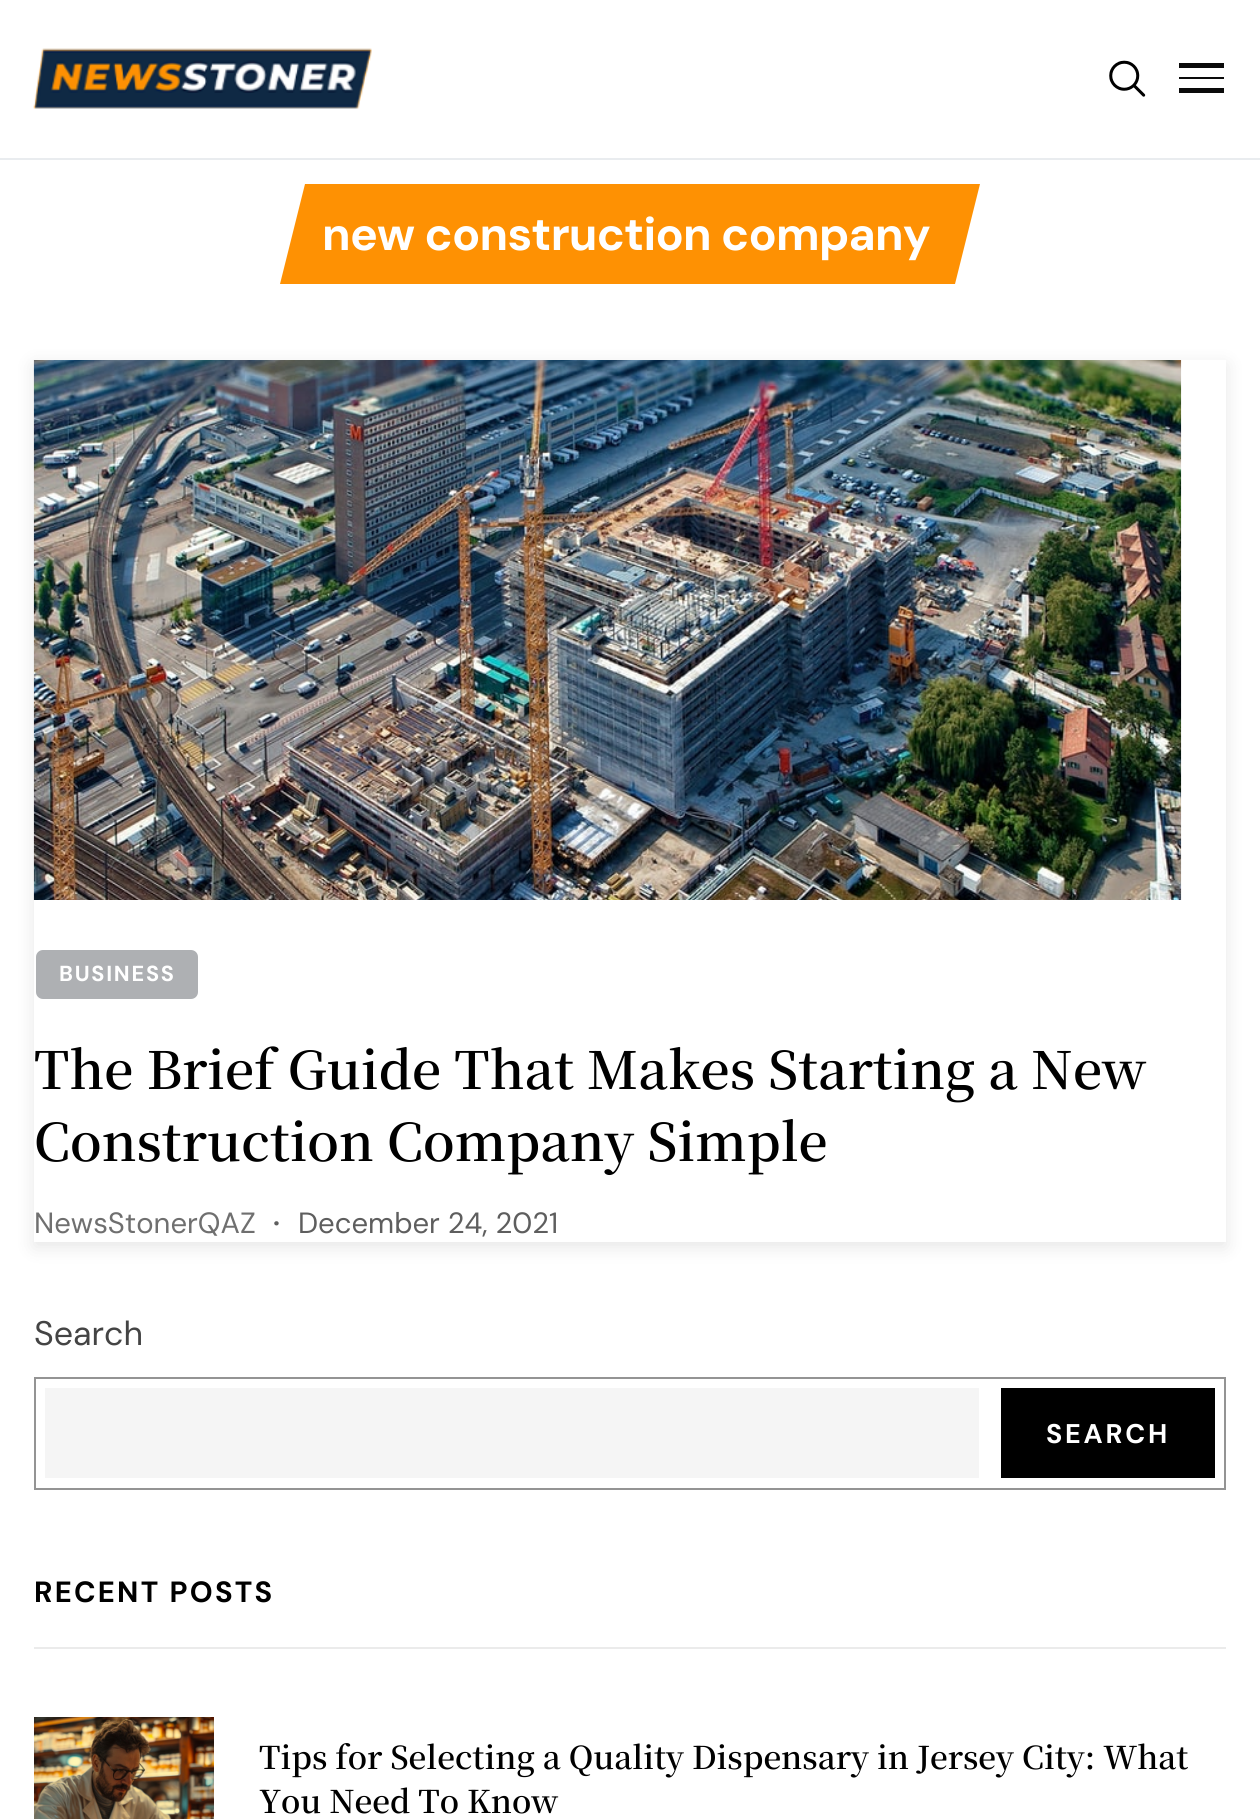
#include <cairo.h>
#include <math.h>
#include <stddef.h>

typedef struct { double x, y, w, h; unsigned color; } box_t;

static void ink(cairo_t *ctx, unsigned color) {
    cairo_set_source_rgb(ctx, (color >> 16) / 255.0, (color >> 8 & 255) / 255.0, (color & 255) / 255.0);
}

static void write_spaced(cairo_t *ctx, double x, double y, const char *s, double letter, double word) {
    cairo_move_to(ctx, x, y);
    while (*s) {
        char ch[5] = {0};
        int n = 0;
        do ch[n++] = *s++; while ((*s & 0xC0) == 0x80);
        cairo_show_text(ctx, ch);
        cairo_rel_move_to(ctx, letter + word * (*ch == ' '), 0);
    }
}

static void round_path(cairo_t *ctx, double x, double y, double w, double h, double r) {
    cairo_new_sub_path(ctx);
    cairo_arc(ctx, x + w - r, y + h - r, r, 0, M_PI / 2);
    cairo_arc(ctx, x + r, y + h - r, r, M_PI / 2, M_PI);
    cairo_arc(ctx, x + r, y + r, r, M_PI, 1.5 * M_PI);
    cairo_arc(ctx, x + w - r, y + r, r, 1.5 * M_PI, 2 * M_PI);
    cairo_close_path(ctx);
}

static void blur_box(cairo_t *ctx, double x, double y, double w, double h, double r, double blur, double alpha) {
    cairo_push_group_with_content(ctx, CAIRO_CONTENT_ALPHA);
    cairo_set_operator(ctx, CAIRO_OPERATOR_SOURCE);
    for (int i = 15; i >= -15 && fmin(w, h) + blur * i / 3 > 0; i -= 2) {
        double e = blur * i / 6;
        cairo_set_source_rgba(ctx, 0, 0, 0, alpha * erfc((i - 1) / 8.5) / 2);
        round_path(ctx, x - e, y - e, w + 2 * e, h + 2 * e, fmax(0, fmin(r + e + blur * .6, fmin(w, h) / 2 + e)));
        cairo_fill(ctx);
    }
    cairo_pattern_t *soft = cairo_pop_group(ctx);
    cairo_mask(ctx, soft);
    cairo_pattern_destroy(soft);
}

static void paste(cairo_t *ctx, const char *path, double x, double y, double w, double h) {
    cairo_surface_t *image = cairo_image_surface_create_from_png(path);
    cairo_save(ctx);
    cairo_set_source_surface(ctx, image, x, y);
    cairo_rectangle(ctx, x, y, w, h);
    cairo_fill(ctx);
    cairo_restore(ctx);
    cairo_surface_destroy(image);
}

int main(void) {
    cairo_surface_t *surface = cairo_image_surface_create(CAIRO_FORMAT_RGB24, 1260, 1819);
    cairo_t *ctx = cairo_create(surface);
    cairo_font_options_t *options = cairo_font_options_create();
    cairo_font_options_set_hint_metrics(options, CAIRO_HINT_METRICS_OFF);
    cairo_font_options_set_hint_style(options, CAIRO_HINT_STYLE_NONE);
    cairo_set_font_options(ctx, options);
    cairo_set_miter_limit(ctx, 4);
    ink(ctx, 0xFFFFFF);
    cairo_paint(ctx);
    ink(ctx, 0xE9ECEF);
    cairo_rectangle(ctx, 0, 158, 1260, 2);
    cairo_fill(ctx);
    paste(ctx, "media/1.png", 33, 48, 339, 61);
    paste(ctx, "media/2.png", 1109, 60, 37, 37);
    {
        static const box_t items[] = {
            {1179, 63, 45, 5, 0x0A0A0A},
            {1179, 77, 45, 2, 0x0A0A0A},
            {1179, 88, 45, 5, 0x0A0A0A},
        };
        for (size_t i = 0; i < sizeof items / sizeof *items; i++) {
            ink(ctx, items[i].color);
            cairo_rectangle(ctx, items[i].x, items[i].y, items[i].w, items[i].h);
            cairo_fill(ctx);
        }
    }
    ink(ctx, 0xFE9103);
    cairo_new_path(ctx);
    cairo_move_to(ctx, 305, 184);
    cairo_line_to(ctx, 980, 184);
    cairo_line_to(ctx, 955, 284);
    cairo_line_to(ctx, 280, 284);
    cairo_close_path(ctx);
    cairo_fill(ctx);
    cairo_select_font_face(ctx, "DM Sans", CAIRO_FONT_SLANT_NORMAL, CAIRO_FONT_WEIGHT_BOLD);
    cairo_set_font_size(ctx, 46.4);
    ink(ctx, 0xFFFFFF);
    write_spaced(ctx, 322, 250, "new construction company", -0.75, 0);
    cairo_save(ctx);
    cairo_set_fill_rule(ctx, CAIRO_FILL_RULE_EVEN_ODD);
    cairo_new_path(ctx);
    cairo_move_to(ctx, 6, 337);
    cairo_line_to(ctx, 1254, 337);
    cairo_line_to(ctx, 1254, 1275);
    cairo_line_to(ctx, 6, 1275);
    cairo_close_path(ctx);
    cairo_move_to(ctx, 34, 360);
    cairo_line_to(ctx, 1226, 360);
    cairo_line_to(ctx, 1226, 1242);
    cairo_line_to(ctx, 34, 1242);
    cairo_close_path(ctx);
    cairo_clip(ctx);
    ink(ctx, 0x000000);
    blur_box(ctx, 34, 365, 1192, 882, 0, 9, 0.1);
    cairo_restore(ctx);
    paste(ctx, "media/3.png", 33, 360, 1149, 540);
    ink(ctx, 0xAEB0B3);
    round_path(ctx, 36, 950, 162, 49, 7);
    cairo_fill(ctx);
    cairo_set_font_size(ctx, 21.75);
    ink(ctx, 0xFFFFFF);
    write_spaced(ctx, 59, 981, "BUSINESS", 1.75, 0);
    cairo_select_font_face(ctx, "Noto Serif JP ExtraLight", CAIRO_FONT_SLANT_NORMAL, CAIRO_FONT_WEIGHT_NORMAL);
    cairo_set_font_size(ctx, 51.75);
    ink(ctx, 0x000000);
    cairo_move_to(ctx, 34, 1089);
    cairo_show_text(ctx, "The Brief Guide That Makes Starting a New");
    cairo_move_to(ctx, 34, 1161);
    cairo_show_text(ctx, "Construction Company Simple");
    cairo_select_font_face(ctx, "DM Sans", CAIRO_FONT_SLANT_NORMAL, CAIRO_FONT_WEIGHT_NORMAL);
    cairo_set_font_size(ctx, 29.25);
    ink(ctx, 0x6F6F6F);
    cairo_move_to(ctx, 34, 1233);
    cairo_show_text(ctx, "NewsStonerQAZ");
    cairo_select_font_face(ctx, "DM Sans SemiBold", CAIRO_FONT_SLANT_NORMAL, CAIRO_FONT_WEIGHT_NORMAL);
    ink(ctx, 0x5E5E5E);
    cairo_move_to(ctx, 273, 1233);
    cairo_show_text(ctx, "·");
    cairo_select_font_face(ctx, "DM Sans", CAIRO_FONT_SLANT_NORMAL, CAIRO_FONT_WEIGHT_NORMAL);
    cairo_move_to(ctx, 298, 1233);
    cairo_show_text(ctx, "December 24, 2021");
    cairo_set_font_size(ctx, 34);
    ink(ctx, 0x444444);
    cairo_move_to(ctx, 34, 1345);
    cairo_show_text(ctx, "Search");
    cairo_rectangle(ctx, 35, 1378, 1190, 111);
    ink(ctx, 0x949494);
    cairo_stroke(ctx);
    ink(ctx, 0xF5F5F5);
    cairo_rectangle(ctx, 45, 1388, 934, 90);
    cairo_fill(ctx);
    ink(ctx, 0x000000);
    cairo_rectangle(ctx, 1001, 1388, 214, 90);
    cairo_fill(ctx);
    cairo_select_font_face(ctx, "DM Sans", CAIRO_FONT_SLANT_NORMAL, CAIRO_FONT_WEIGHT_BOLD);
    cairo_set_font_size(ctx, 27);
    ink(ctx, 0xFFFFFF);
    write_spaced(ctx, 1046, 1443, "SEARCH", 2.75, 0);
    ink(ctx, 0xEBEBEB);
    cairo_rectangle(ctx, 34, 1647, 1192, 2);
    cairo_fill(ctx);
    cairo_set_font_size(ctx, 29.25);
    ink(ctx, 0x000000);
    write_spaced(ctx, 34, 1602, "RECENT POSTS", 2.25, 0);
    paste(ctx, "media/4.png", 34, 1717, 180, 102);
    cairo_select_font_face(ctx, "Noto Serif JP ExtraLight", CAIRO_FONT_SLANT_NORMAL, CAIRO_FONT_WEIGHT_NORMAL);
    cairo_set_font_size(ctx, 31.5);
    cairo_move_to(ctx, 259, 1769);
    cairo_show_text(ctx, "Tips for Selecting a Quality Dispensary in Jersey City: What");
    cairo_move_to(ctx, 259, 1813);
    cairo_show_text(ctx, "You Need To Know");
    cairo_surface_write_to_png(surface, "image.png");
    cairo_font_options_destroy(options);
    cairo_destroy(ctx);
    cairo_surface_destroy(surface);
    return 0;
}
